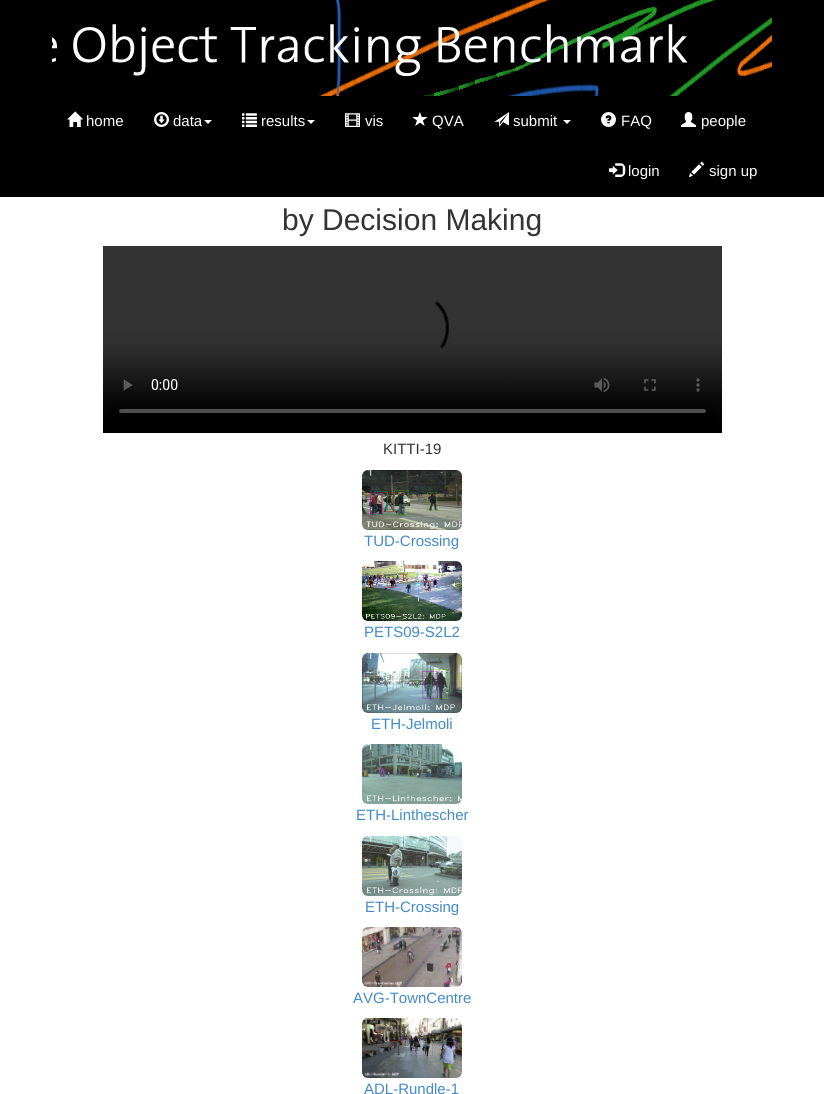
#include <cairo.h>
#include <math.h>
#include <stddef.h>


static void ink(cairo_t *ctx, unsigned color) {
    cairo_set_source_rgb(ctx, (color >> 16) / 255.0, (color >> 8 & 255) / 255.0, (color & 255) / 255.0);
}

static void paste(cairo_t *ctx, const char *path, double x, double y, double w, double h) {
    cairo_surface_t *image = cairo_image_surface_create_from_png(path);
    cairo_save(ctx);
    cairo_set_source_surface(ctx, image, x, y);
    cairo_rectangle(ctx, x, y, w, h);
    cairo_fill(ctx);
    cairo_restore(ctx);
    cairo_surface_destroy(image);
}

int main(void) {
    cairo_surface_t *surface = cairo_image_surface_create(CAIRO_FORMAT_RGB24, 824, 1094);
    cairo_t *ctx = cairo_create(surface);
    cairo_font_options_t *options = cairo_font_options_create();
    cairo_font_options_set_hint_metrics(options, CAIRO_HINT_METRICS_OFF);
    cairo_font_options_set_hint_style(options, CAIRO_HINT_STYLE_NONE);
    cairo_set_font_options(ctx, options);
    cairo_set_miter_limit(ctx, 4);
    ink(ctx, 0xFFFFFF);
    cairo_paint(ctx);
    ink(ctx, 0x000000);
    cairo_rectangle(ctx, 0, 0, 824, 197);
    cairo_fill(ctx);
    paste(ctx, "media/1.png", 52, 0, 720, 96);
    paste(ctx, "media/2.png", 67, 111, 17, 16);
    cairo_select_font_face(ctx, "Liberation Sans", CAIRO_FONT_SLANT_NORMAL, CAIRO_FONT_WEIGHT_NORMAL);
    cairo_set_font_size(ctx, 15);
    ink(ctx, 0xFFFFFF);
    cairo_move_to(ctx, 86, 126);
    cairo_show_text(ctx, "home");
    paste(ctx, "media/3.png", 154, 112, 15, 15);
    cairo_move_to(ctx, 173, 126);
    cairo_show_text(ctx, "data");
    cairo_new_path(ctx);
    cairo_move_to(ctx, 204, 120);
    cairo_line_to(ctx, 212, 120);
    cairo_line_to(ctx, 208, 124);
    cairo_close_path(ctx);
    cairo_fill(ctx);
    paste(ctx, "media/4.png", 242, 113, 15, 14);
    cairo_move_to(ctx, 261, 126);
    cairo_show_text(ctx, "results");
    cairo_new_path(ctx);
    cairo_move_to(ctx, 307, 120);
    cairo_line_to(ctx, 315, 120);
    cairo_line_to(ctx, 311, 124);
    cairo_close_path(ctx);
    cairo_fill(ctx);
    paste(ctx, "media/5.png", 345, 113, 15, 14);
    cairo_move_to(ctx, 365, 126);
    cairo_show_text(ctx, "vis");
    paste(ctx, "media/6.png", 412, 112, 16, 14);
    cairo_move_to(ctx, 432, 126);
    cairo_show_text(ctx, "QVA");
    paste(ctx, "media/7.png", 494, 112, 15, 15);
    cairo_move_to(ctx, 513, 126);
    cairo_show_text(ctx, "submit");
    cairo_new_path(ctx);
    cairo_move_to(ctx, 563, 120);
    cairo_line_to(ctx, 571, 120);
    cairo_line_to(ctx, 567, 124);
    cairo_close_path(ctx);
    cairo_fill(ctx);
    paste(ctx, "media/8.png", 601, 112, 15, 15);
    cairo_move_to(ctx, 621, 126);
    cairo_show_text(ctx, "FAQ");
    paste(ctx, "media/9.png", 681, 112, 15, 15);
    cairo_move_to(ctx, 701, 126);
    cairo_show_text(ctx, "people");
    paste(ctx, "media/10.png", 609, 163, 17, 14);
    cairo_move_to(ctx, 628, 176);
    cairo_show_text(ctx, "login");
    paste(ctx, "media/11.png", 689, 161, 16, 16);
    cairo_move_to(ctx, 709, 176);
    cairo_show_text(ctx, "sign up");
    cairo_set_font_size(ctx, 30);
    ink(ctx, 0x333333);
    cairo_move_to(ctx, 282, 230);
    cairo_show_text(ctx, "by Decision Making");
    paste(ctx, "media/12.png", 103, 246, 619, 187);
    cairo_set_font_size(ctx, 15);
    cairo_move_to(ctx, 383, 454);
    cairo_show_text(ctx, "KITTI-19");
    paste(ctx, "media/13.png", 362, 470, 100, 60);
    ink(ctx, 0x428BCA);
    cairo_move_to(ctx, 364, 546);
    cairo_show_text(ctx, "TUD-Crossing");
    paste(ctx, "media/14.png", 362, 561, 100, 60);
    cairo_move_to(ctx, 364, 637);
    cairo_show_text(ctx, "PETS09-S2L2");
    paste(ctx, "media/15.png", 362, 653, 100, 60);
    cairo_move_to(ctx, 371, 729);
    cairo_show_text(ctx, "ETH-Jelmoli");
    paste(ctx, "media/16.png", 362, 744, 100, 60);
    cairo_move_to(ctx, 356, 820);
    cairo_show_text(ctx, "ETH-Linthescher");
    paste(ctx, "media/17.png", 362, 836, 100, 60);
    cairo_move_to(ctx, 365, 912);
    cairo_show_text(ctx, "ETH-Crossing");
    paste(ctx, "media/18.png", 362, 927, 100, 60);
    cairo_move_to(ctx, 353, 1003);
    cairo_show_text(ctx, "AVG-TownCentre");
    paste(ctx, "media/19.png", 362, 1018, 100, 60);
    cairo_move_to(ctx, 364, 1094);
    cairo_show_text(ctx, "ADL-Rundle-1");
    cairo_surface_write_to_png(surface, "image.png");
    cairo_font_options_destroy(options);
    cairo_destroy(ctx);
    cairo_surface_destroy(surface);
    return 0;
}
